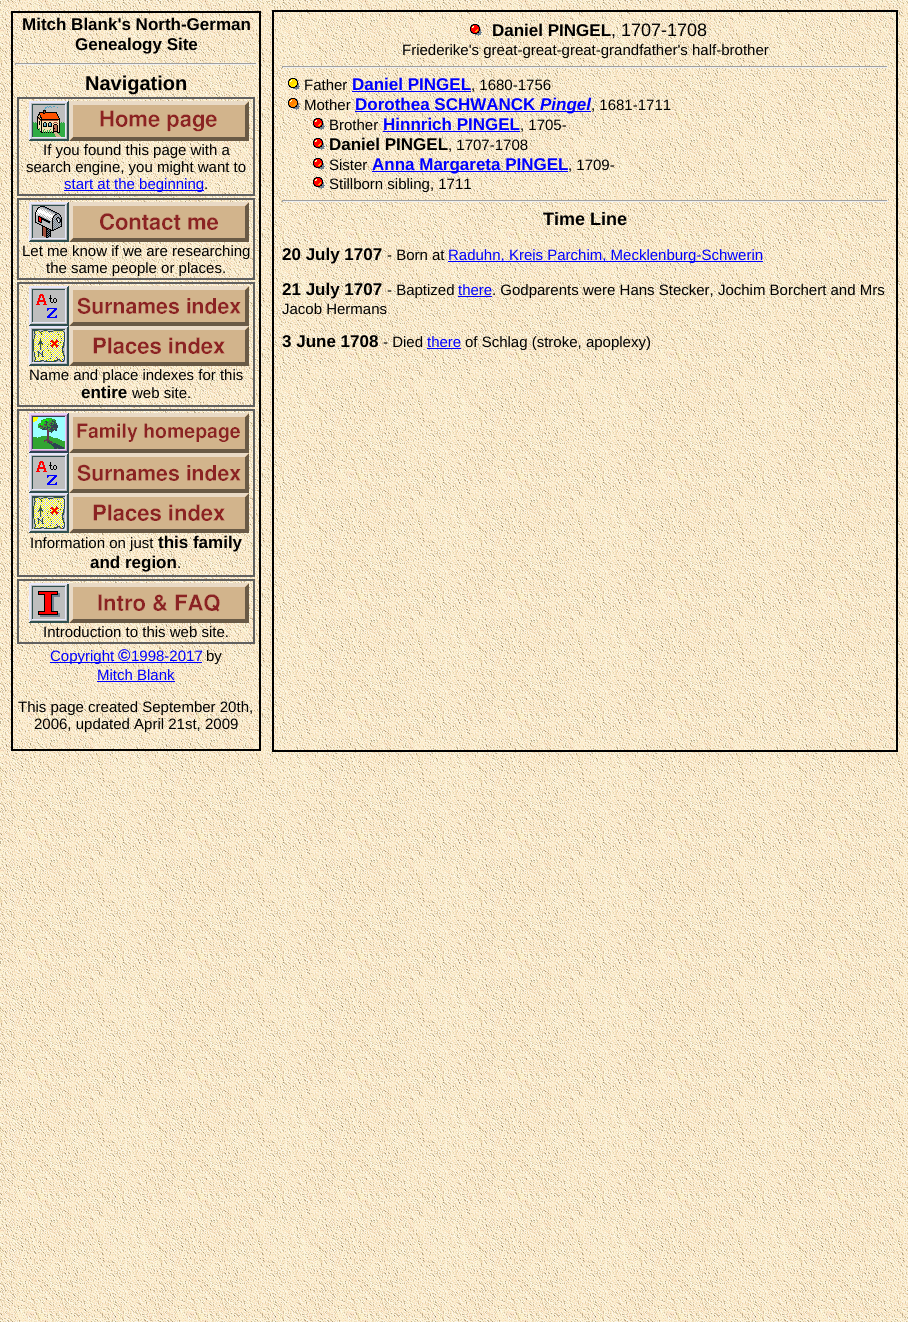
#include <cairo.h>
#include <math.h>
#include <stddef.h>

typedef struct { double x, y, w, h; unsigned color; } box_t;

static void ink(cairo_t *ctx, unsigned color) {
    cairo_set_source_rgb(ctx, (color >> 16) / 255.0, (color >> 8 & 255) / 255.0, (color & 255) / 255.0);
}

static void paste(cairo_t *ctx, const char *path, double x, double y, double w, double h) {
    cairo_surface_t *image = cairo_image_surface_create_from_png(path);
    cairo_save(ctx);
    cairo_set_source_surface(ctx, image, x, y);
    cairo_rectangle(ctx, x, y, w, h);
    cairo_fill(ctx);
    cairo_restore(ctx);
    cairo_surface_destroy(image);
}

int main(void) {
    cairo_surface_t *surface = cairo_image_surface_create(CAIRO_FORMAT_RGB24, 908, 1322);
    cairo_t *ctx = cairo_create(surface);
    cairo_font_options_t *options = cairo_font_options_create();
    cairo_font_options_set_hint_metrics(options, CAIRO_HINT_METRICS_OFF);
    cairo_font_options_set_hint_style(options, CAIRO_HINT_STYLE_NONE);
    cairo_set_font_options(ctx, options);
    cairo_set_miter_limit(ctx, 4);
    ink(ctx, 0xFFFFFF);
    cairo_paint(ctx);
    paste(ctx, "media/1.png", 0, 0, 908, 1322);
    cairo_rectangle(ctx, 12, 12, 248, 738);
    ink(ctx, 0x000000);
    cairo_stroke(ctx);
    cairo_select_font_face(ctx, "Liberation Sans", CAIRO_FONT_SLANT_NORMAL, CAIRO_FONT_WEIGHT_BOLD);
    cairo_set_font_size(ctx, 17);
    cairo_move_to(ctx, 22, 30);
    cairo_show_text(ctx, "Mitch Blank's North-German");
    cairo_move_to(ctx, 75, 50);
    cairo_show_text(ctx, "Genealogy Site");
    {
        static const box_t items[] = {
            {15, 63, 242, 1, 0x9F9F9F},
            {256, 63, 1, 2, 0xEEEEEE},
            {15, 64, 242, 1, 0xEEEEEE},
            {15, 63, 1, 2, 0x9F9F9F},
        };
        for (size_t i = 0; i < sizeof items / sizeof *items; i++) {
            ink(ctx, items[i].color);
            cairo_rectangle(ctx, items[i].x, items[i].y, items[i].w, items[i].h);
            cairo_fill(ctx);
        }
    }
    cairo_set_font_size(ctx, 20);
    ink(ctx, 0x000000);
    cairo_move_to(ctx, 85, 90);
    cairo_show_text(ctx, "Navigation");
    cairo_rectangle(ctx, 18, 98, 236, 97);
    ink(ctx, 0x606060);
    cairo_stroke(ctx);
    paste(ctx, "media/2.png", 29, 101, 220, 40);
    cairo_select_font_face(ctx, "Liberation Sans", CAIRO_FONT_SLANT_NORMAL, CAIRO_FONT_WEIGHT_NORMAL);
    cairo_set_font_size(ctx, 15);
    ink(ctx, 0x000000);
    cairo_move_to(ctx, 43, 155);
    cairo_show_text(ctx, "If you found this page with a");
    cairo_move_to(ctx, 26, 172);
    cairo_show_text(ctx, "search engine, you might want to");
    ink(ctx, 0x0000FF);
    cairo_rectangle(ctx, 64, 190, 140, 1);
    cairo_fill(ctx);
    cairo_move_to(ctx, 64, 189);
    cairo_show_text(ctx, "start at the beginning");
    ink(ctx, 0x000000);
    cairo_move_to(ctx, 204, 189);
    cairo_show_text(ctx, ".");
    cairo_rectangle(ctx, 18, 199, 236, 80);
    ink(ctx, 0x606060);
    cairo_stroke(ctx);
    paste(ctx, "media/3.png", 29, 202, 220, 40);
    ink(ctx, 0x000000);
    cairo_move_to(ctx, 22, 256);
    cairo_show_text(ctx, "Let me know if we are researching");
    cairo_move_to(ctx, 46, 273);
    cairo_show_text(ctx, "the same people or places.");
    cairo_rectangle(ctx, 18, 283, 236, 123);
    ink(ctx, 0x606060);
    cairo_stroke(ctx);
    paste(ctx, "media/4.png", 29, 286, 220, 40);
    paste(ctx, "media/5.png", 29, 326, 220, 40);
    ink(ctx, 0x000000);
    cairo_move_to(ctx, 29, 380);
    cairo_show_text(ctx, "Name and place indexes for this");
    cairo_select_font_face(ctx, "Liberation Sans", CAIRO_FONT_SLANT_NORMAL, CAIRO_FONT_WEIGHT_BOLD);
    cairo_set_font_size(ctx, 17);
    cairo_move_to(ctx, 81, 398);
    cairo_show_text(ctx, "entire");
    cairo_select_font_face(ctx, "Liberation Sans", CAIRO_FONT_SLANT_NORMAL, CAIRO_FONT_WEIGHT_NORMAL);
    cairo_set_font_size(ctx, 15);
    cairo_move_to(ctx, 132, 398);
    cairo_show_text(ctx, "web site.");
    cairo_rectangle(ctx, 18, 410, 236, 166);
    ink(ctx, 0x606060);
    cairo_stroke(ctx);
    paste(ctx, "media/6.png", 29, 413, 220, 40);
    paste(ctx, "media/4.png", 29, 453, 220, 40);
    paste(ctx, "media/5.png", 29, 493, 220, 40);
    ink(ctx, 0x000000);
    cairo_move_to(ctx, 30, 548);
    cairo_show_text(ctx, "Information on just");
    cairo_select_font_face(ctx, "Liberation Sans", CAIRO_FONT_SLANT_NORMAL, CAIRO_FONT_WEIGHT_BOLD);
    cairo_set_font_size(ctx, 17);
    cairo_move_to(ctx, 158, 548);
    cairo_show_text(ctx, "this family");
    cairo_move_to(ctx, 90, 568);
    cairo_show_text(ctx, "and region");
    cairo_select_font_face(ctx, "Liberation Sans", CAIRO_FONT_SLANT_NORMAL, CAIRO_FONT_WEIGHT_NORMAL);
    cairo_set_font_size(ctx, 15);
    cairo_move_to(ctx, 177, 568);
    cairo_show_text(ctx, ".");
    cairo_rectangle(ctx, 18, 580, 236, 63);
    ink(ctx, 0x606060);
    cairo_stroke(ctx);
    paste(ctx, "media/7.png", 29, 583, 220, 40);
    ink(ctx, 0x000000);
    cairo_move_to(ctx, 43, 637);
    cairo_show_text(ctx, "Introduction to this web site.");
    ink(ctx, 0x0000FF);
    cairo_rectangle(ctx, 50, 662, 152, 1);
    cairo_fill(ctx);
    cairo_move_to(ctx, 50, 661);
    cairo_show_text(ctx, "Copyright");
    cairo_select_font_face(ctx, "Liberation Sans", CAIRO_FONT_SLANT_NORMAL, CAIRO_FONT_WEIGHT_BOLD);
    cairo_set_font_size(ctx, 17);
    cairo_move_to(ctx, 118, 661);
    cairo_show_text(ctx, "©");
    cairo_select_font_face(ctx, "Liberation Sans", CAIRO_FONT_SLANT_NORMAL, CAIRO_FONT_WEIGHT_NORMAL);
    cairo_set_font_size(ctx, 15);
    cairo_move_to(ctx, 131, 661);
    cairo_show_text(ctx, "1998-2017");
    ink(ctx, 0x000000);
    cairo_move_to(ctx, 206, 661);
    cairo_show_text(ctx, "by");
    ink(ctx, 0x0000FF);
    cairo_move_to(ctx, 97, 680);
    cairo_show_text(ctx, "Mitch Blank");
    cairo_rectangle(ctx, 97, 681, 78, 1);
    cairo_fill(ctx);
    ink(ctx, 0x000000);
    cairo_move_to(ctx, 18, 712);
    cairo_show_text(ctx, "This page created September 20th,");
    cairo_move_to(ctx, 34, 729);
    cairo_show_text(ctx, "2006, updated April 21st, 2009");
    cairo_rectangle(ctx, 273, 11, 624, 740);
    cairo_stroke(ctx);
    paste(ctx, "media/8.png", 470, 24, 12, 12);
    cairo_select_font_face(ctx, "Liberation Sans", CAIRO_FONT_SLANT_NORMAL, CAIRO_FONT_WEIGHT_BOLD);
    cairo_set_font_size(ctx, 17);
    cairo_move_to(ctx, 492, 36);
    cairo_show_text(ctx, "Daniel PINGEL");
    cairo_select_font_face(ctx, "Liberation Sans", CAIRO_FONT_SLANT_NORMAL, CAIRO_FONT_WEIGHT_NORMAL);
    cairo_set_font_size(ctx, 18);
    cairo_move_to(ctx, 611, 36);
    cairo_show_text(ctx, ", 1707-1708");
    cairo_set_font_size(ctx, 15);
    cairo_move_to(ctx, 402, 55);
    cairo_show_text(ctx, "Friederike's great-great-great-grandfather's half-brother");
    {
        static const box_t items[] = {
            {282, 66, 606, 1, 0x9F9F9F},
            {887, 66, 1, 2, 0xEEEEEE},
            {282, 67, 606, 1, 0xEEEEEE},
            {282, 66, 1, 2, 0x9F9F9F},
        };
        for (size_t i = 0; i < sizeof items / sizeof *items; i++) {
            ink(ctx, items[i].color);
            cairo_rectangle(ctx, items[i].x, items[i].y, items[i].w, items[i].h);
            cairo_fill(ctx);
        }
    }
    paste(ctx, "media/9.png", 288, 78, 12, 12);
    ink(ctx, 0x000000);
    cairo_move_to(ctx, 304, 90);
    cairo_show_text(ctx, "Father");
    cairo_select_font_face(ctx, "Liberation Sans", CAIRO_FONT_SLANT_NORMAL, CAIRO_FONT_WEIGHT_BOLD);
    cairo_set_font_size(ctx, 17);
    ink(ctx, 0x0000FF);
    cairo_move_to(ctx, 352, 90);
    cairo_show_text(ctx, "Daniel PINGEL");
    cairo_rectangle(ctx, 352, 91, 119, 1);
    cairo_fill(ctx);
    cairo_select_font_face(ctx, "Liberation Sans", CAIRO_FONT_SLANT_NORMAL, CAIRO_FONT_WEIGHT_NORMAL);
    cairo_set_font_size(ctx, 15);
    ink(ctx, 0x000000);
    cairo_move_to(ctx, 471, 90);
    cairo_show_text(ctx, ", 1680-1756");
    paste(ctx, "media/10.png", 288, 98, 12, 12);
    cairo_move_to(ctx, 304, 110);
    cairo_show_text(ctx, "Mother");
    cairo_select_font_face(ctx, "Liberation Sans", CAIRO_FONT_SLANT_NORMAL, CAIRO_FONT_WEIGHT_BOLD);
    cairo_set_font_size(ctx, 17);
    ink(ctx, 0x0000FF);
    cairo_move_to(ctx, 355, 110);
    cairo_show_text(ctx, "Dorothea SCHWANCK");
    cairo_rectangle(ctx, 355, 111, 236, 1);
    cairo_fill(ctx);
    cairo_select_font_face(ctx, "Liberation Sans", CAIRO_FONT_SLANT_ITALIC, CAIRO_FONT_WEIGHT_BOLD);
    cairo_move_to(ctx, 540, 110);
    cairo_show_text(ctx, "Pingel");
    cairo_select_font_face(ctx, "Liberation Sans", CAIRO_FONT_SLANT_NORMAL, CAIRO_FONT_WEIGHT_NORMAL);
    cairo_set_font_size(ctx, 15);
    ink(ctx, 0x000000);
    cairo_move_to(ctx, 591, 110);
    cairo_show_text(ctx, ", 1681-1711");
    paste(ctx, "media/11.png", 313, 118, 12, 12);
    cairo_move_to(ctx, 329, 130);
    cairo_show_text(ctx, "Brother");
    cairo_select_font_face(ctx, "Liberation Sans", CAIRO_FONT_SLANT_NORMAL, CAIRO_FONT_WEIGHT_BOLD);
    cairo_set_font_size(ctx, 17);
    ink(ctx, 0x0000FF);
    cairo_move_to(ctx, 383, 130);
    cairo_show_text(ctx, "Hinnrich PINGEL");
    cairo_rectangle(ctx, 383, 131, 137, 1);
    cairo_fill(ctx);
    cairo_select_font_face(ctx, "Liberation Sans", CAIRO_FONT_SLANT_NORMAL, CAIRO_FONT_WEIGHT_NORMAL);
    cairo_set_font_size(ctx, 15);
    ink(ctx, 0x000000);
    cairo_move_to(ctx, 520, 130);
    cairo_show_text(ctx, ", 1705-");
    paste(ctx, "media/12.png", 313, 138, 12, 12);
    cairo_select_font_face(ctx, "Liberation Sans", CAIRO_FONT_SLANT_NORMAL, CAIRO_FONT_WEIGHT_BOLD);
    cairo_set_font_size(ctx, 17);
    cairo_move_to(ctx, 329, 150);
    cairo_show_text(ctx, "Daniel PINGEL");
    cairo_select_font_face(ctx, "Liberation Sans", CAIRO_FONT_SLANT_NORMAL, CAIRO_FONT_WEIGHT_NORMAL);
    cairo_set_font_size(ctx, 15);
    cairo_move_to(ctx, 448, 150);
    cairo_show_text(ctx, ", 1707-1708");
    paste(ctx, "media/13.png", 313, 158, 12, 12);
    cairo_move_to(ctx, 329, 170);
    cairo_show_text(ctx, "Sister");
    ink(ctx, 0x0000FF);
    cairo_rectangle(ctx, 372, 171, 196, 1);
    cairo_fill(ctx);
    cairo_select_font_face(ctx, "Liberation Sans", CAIRO_FONT_SLANT_NORMAL, CAIRO_FONT_WEIGHT_BOLD);
    cairo_set_font_size(ctx, 17);
    cairo_move_to(ctx, 372, 170);
    cairo_show_text(ctx, "Anna Margareta PINGEL");
    cairo_select_font_face(ctx, "Liberation Sans", CAIRO_FONT_SLANT_NORMAL, CAIRO_FONT_WEIGHT_NORMAL);
    cairo_set_font_size(ctx, 15);
    ink(ctx, 0x000000);
    cairo_move_to(ctx, 568, 170);
    cairo_show_text(ctx, ", 1709-");
    paste(ctx, "media/14.png", 313, 177, 12, 12);
    cairo_move_to(ctx, 329, 189);
    cairo_show_text(ctx, "Stillborn sibling, 1711");
    {
        static const box_t items[] = {
            {282, 200, 606, 1, 0x9F9F9F},
            {887, 200, 1, 2, 0xEEEEEE},
            {282, 201, 606, 1, 0xEEEEEE},
            {282, 200, 1, 2, 0x9F9F9F},
        };
        for (size_t i = 0; i < sizeof items / sizeof *items; i++) {
            ink(ctx, items[i].color);
            cairo_rectangle(ctx, items[i].x, items[i].y, items[i].w, items[i].h);
            cairo_fill(ctx);
        }
    }
    cairo_select_font_face(ctx, "Liberation Sans", CAIRO_FONT_SLANT_NORMAL, CAIRO_FONT_WEIGHT_BOLD);
    cairo_set_font_size(ctx, 18);
    ink(ctx, 0x000000);
    cairo_move_to(ctx, 543, 225);
    cairo_show_text(ctx, "Time Line");
    cairo_set_font_size(ctx, 17);
    cairo_move_to(ctx, 282, 260);
    cairo_show_text(ctx, "20 July 1707");
    cairo_select_font_face(ctx, "Liberation Sans", CAIRO_FONT_SLANT_NORMAL, CAIRO_FONT_WEIGHT_NORMAL);
    cairo_set_font_size(ctx, 15);
    cairo_move_to(ctx, 387, 260);
    cairo_show_text(ctx, "- Born at");
    ink(ctx, 0x0000FF);
    cairo_rectangle(ctx, 448, 261, 315, 1);
    cairo_fill(ctx);
    cairo_move_to(ctx, 448, 260);
    cairo_show_text(ctx, "Raduhn, Kreis Parchim, Mecklenburg-Schwerin");
    cairo_select_font_face(ctx, "Liberation Sans", CAIRO_FONT_SLANT_NORMAL, CAIRO_FONT_WEIGHT_BOLD);
    cairo_set_font_size(ctx, 17);
    ink(ctx, 0x000000);
    cairo_move_to(ctx, 282, 295);
    cairo_show_text(ctx, "21 July 1707");
    cairo_select_font_face(ctx, "Liberation Sans", CAIRO_FONT_SLANT_NORMAL, CAIRO_FONT_WEIGHT_NORMAL);
    cairo_set_font_size(ctx, 15);
    cairo_move_to(ctx, 387, 295);
    cairo_show_text(ctx, "- Baptized");
    ink(ctx, 0x0000FF);
    cairo_move_to(ctx, 458, 295);
    cairo_show_text(ctx, "there");
    cairo_rectangle(ctx, 458, 296, 34, 1);
    cairo_fill(ctx);
    ink(ctx, 0x000000);
    cairo_move_to(ctx, 492, 295);
    cairo_show_text(ctx, ". Godparents were Hans Stecker, Jochim Borchert and Mrs");
    cairo_move_to(ctx, 282, 314);
    cairo_show_text(ctx, "Jacob Hermans");
    cairo_select_font_face(ctx, "Liberation Sans", CAIRO_FONT_SLANT_NORMAL, CAIRO_FONT_WEIGHT_BOLD);
    cairo_set_font_size(ctx, 17);
    cairo_move_to(ctx, 282, 347);
    cairo_show_text(ctx, "3 June 1708");
    cairo_select_font_face(ctx, "Liberation Sans", CAIRO_FONT_SLANT_NORMAL, CAIRO_FONT_WEIGHT_NORMAL);
    cairo_set_font_size(ctx, 15);
    cairo_move_to(ctx, 383, 347);
    cairo_show_text(ctx, "- Died");
    ink(ctx, 0x0000FF);
    cairo_move_to(ctx, 427, 347);
    cairo_show_text(ctx, "there");
    cairo_rectangle(ctx, 427, 348, 34, 1);
    cairo_fill(ctx);
    ink(ctx, 0x000000);
    cairo_move_to(ctx, 465, 347);
    cairo_show_text(ctx, "of Schlag (stroke, apoplexy)");
    cairo_surface_write_to_png(surface, "image.png");
    cairo_font_options_destroy(options);
    cairo_destroy(ctx);
    cairo_surface_destroy(surface);
    return 0;
}
